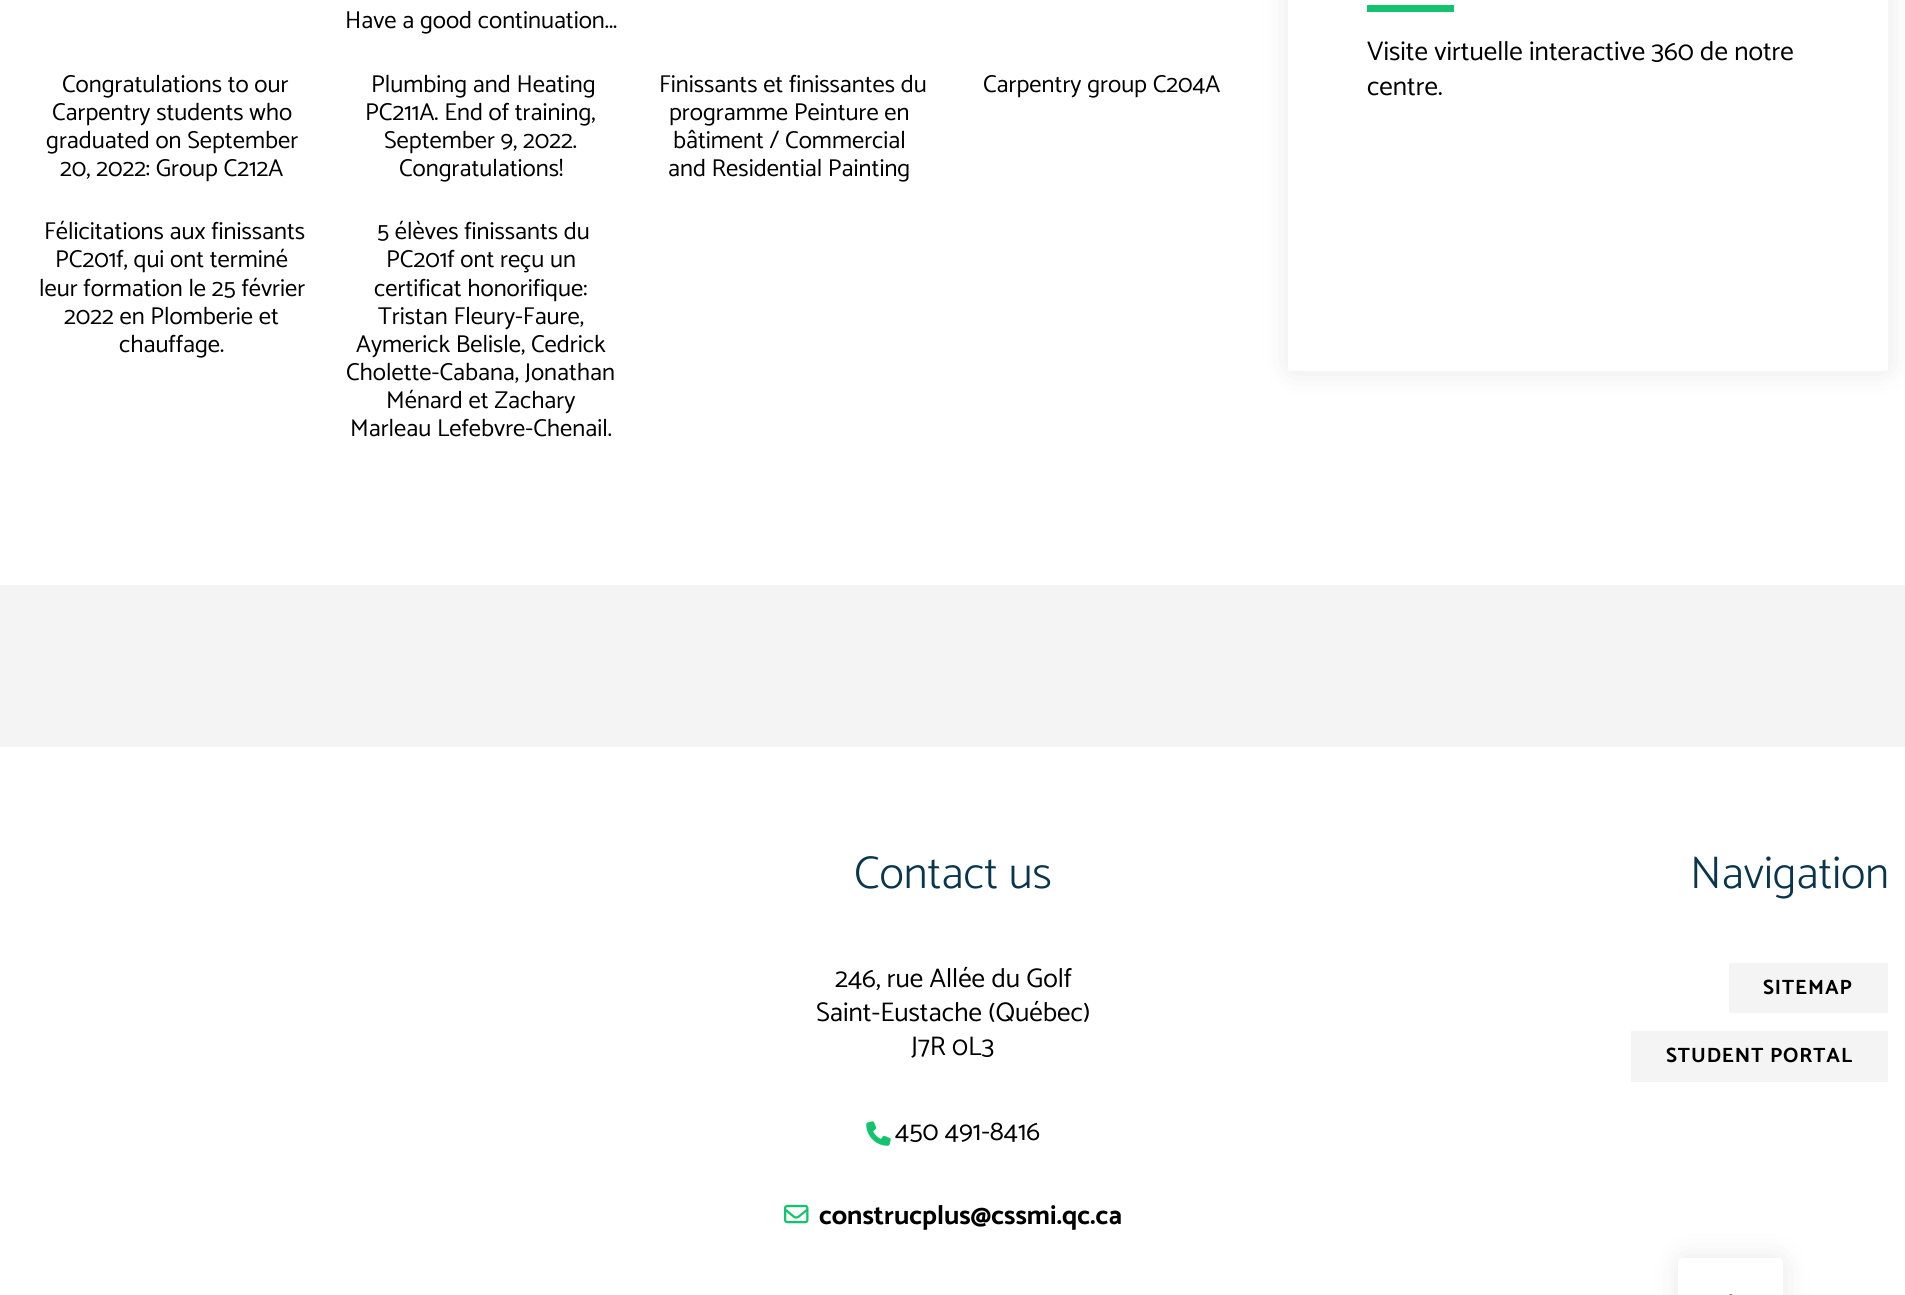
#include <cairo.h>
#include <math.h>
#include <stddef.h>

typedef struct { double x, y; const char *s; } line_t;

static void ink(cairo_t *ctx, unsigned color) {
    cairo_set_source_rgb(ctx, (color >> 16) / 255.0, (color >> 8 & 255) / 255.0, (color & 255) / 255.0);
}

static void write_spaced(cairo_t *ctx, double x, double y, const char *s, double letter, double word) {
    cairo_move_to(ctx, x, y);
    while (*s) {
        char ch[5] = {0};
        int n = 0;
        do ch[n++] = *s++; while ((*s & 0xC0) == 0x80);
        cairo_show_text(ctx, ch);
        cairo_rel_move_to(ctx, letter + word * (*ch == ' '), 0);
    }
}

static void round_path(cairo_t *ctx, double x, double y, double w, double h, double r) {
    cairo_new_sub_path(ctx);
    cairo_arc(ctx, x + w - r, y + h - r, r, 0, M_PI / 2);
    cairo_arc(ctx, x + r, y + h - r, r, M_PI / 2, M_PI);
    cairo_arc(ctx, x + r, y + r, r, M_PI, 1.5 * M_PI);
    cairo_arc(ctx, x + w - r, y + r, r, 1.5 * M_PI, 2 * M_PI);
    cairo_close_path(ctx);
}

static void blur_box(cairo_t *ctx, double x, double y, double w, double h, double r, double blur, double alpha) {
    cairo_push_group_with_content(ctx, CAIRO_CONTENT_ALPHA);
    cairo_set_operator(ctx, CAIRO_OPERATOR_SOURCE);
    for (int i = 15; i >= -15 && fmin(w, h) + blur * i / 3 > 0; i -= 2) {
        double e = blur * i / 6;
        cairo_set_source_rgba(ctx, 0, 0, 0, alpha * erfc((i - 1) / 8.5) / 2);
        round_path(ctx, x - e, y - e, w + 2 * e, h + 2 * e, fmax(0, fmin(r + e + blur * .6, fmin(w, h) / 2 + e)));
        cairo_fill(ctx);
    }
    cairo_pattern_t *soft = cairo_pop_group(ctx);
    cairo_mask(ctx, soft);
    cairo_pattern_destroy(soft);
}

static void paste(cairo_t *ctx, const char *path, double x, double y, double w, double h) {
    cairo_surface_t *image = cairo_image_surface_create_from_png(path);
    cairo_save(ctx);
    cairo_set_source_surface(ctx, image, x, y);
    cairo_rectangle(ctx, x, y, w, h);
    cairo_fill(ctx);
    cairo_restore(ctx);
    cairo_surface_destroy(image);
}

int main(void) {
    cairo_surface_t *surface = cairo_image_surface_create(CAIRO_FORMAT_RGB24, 1905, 1295);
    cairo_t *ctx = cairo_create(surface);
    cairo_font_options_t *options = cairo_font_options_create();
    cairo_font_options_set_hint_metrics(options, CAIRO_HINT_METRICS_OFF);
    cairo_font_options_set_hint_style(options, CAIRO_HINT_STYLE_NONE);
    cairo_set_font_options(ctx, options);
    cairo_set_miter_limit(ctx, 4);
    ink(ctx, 0xFFFFFF);
    cairo_paint(ctx);
    cairo_select_font_face(ctx, "Catamaran", CAIRO_FONT_SLANT_NORMAL, CAIRO_FONT_WEIGHT_NORMAL);
    cairo_set_font_size(ctx, 24.5);
    ink(ctx, 0x000000);
    {
        static const line_t items[] = {
            {345, 28, "Have a good continuation..."},
            {62, 92, "Congratulations to our"},
            {52, 120, "Carpentry students who"},
            {46, 148, "graduated on September"},
            {60, 176, "20, 2022: Group C212A"},
            {371, 92, "Plumbing and Heating"},
            {365, 120, "PC211A. End of training,"},
            {384, 148, "September 9, 2022."},
            {399, 176, "Congratulations!"},
            {659, 92, "Finissants et finissantes du"},
            {669, 120, "programme Peinture en"},
            {673, 148, "bâtiment / Commercial"},
            {668, 176, "and Residential Painting"},
            {983, 92, "Carpentry group C204A"},
            {44, 239, "Félicitations aux finissants"},
            {55, 267, "PC201f, qui ont terminé"},
            {39, 296, "leur formation le 25 février"},
            {64, 324, "2022 en Plomberie et"},
            {119, 352, "chauffage."},
            {377, 239, "5 élèves finissants du"},
            {386, 267, "PC201f ont reçu un"},
            {374, 296, "certificat honorifique:"},
            {378, 324, "Tristan Fleury-Faure,"},
            {356, 352, "Aymerick Belisle, Cedrick"},
            {346, 380, "Cholette-Cabana, Jonathan"},
            {386, 408, "Ménard et Zachary"},
            {350, 436, "Marleau Lefebvre-Chenail."},
        };
        for (size_t i = 0; i < sizeof items / sizeof *items; i++) {
            cairo_move_to(ctx, items[i].x, items[i].y);
            cairo_show_text(ctx, items[i].s);
        }
    }
    cairo_save(ctx);
    cairo_set_fill_rule(ctx, CAIRO_FILL_RULE_EVEN_ODD);
    cairo_new_path(ctx);
    cairo_move_to(ctx, 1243, 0);
    cairo_line_to(ctx, 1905, 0);
    cairo_line_to(ctx, 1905, 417);
    cairo_line_to(ctx, 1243, 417);
    cairo_close_path(ctx);
    cairo_move_to(ctx, 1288, -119);
    cairo_line_to(ctx, 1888, -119);
    cairo_line_to(ctx, 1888, 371);
    cairo_line_to(ctx, 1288, 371);
    cairo_close_path(ctx);
    cairo_clip(ctx);
    ink(ctx, 0x000000);
    blur_box(ctx, 1292, -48, 593, 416, 0, 16, 0.11);
    cairo_restore(ctx);
    ink(ctx, 0x14C36D);
    cairo_rectangle(ctx, 1367, 5, 87, 7);
    cairo_fill(ctx);
    cairo_set_font_size(ctx, 27);
    ink(ctx, 0x000000);
    cairo_move_to(ctx, 1367, 60);
    cairo_show_text(ctx, "Visite virtuelle interactive 360 de notre");
    cairo_move_to(ctx, 1367, 95);
    cairo_show_text(ctx, "centre.");
    ink(ctx, 0xF4F4F4);
    cairo_rectangle(ctx, 0, 585, 1905, 162);
    cairo_fill(ctx);
    cairo_select_font_face(ctx, "Catamaran Light", CAIRO_FONT_SLANT_NORMAL, CAIRO_FONT_WEIGHT_NORMAL);
    cairo_set_font_size(ctx, 46);
    ink(ctx, 0x09354F);
    cairo_move_to(ctx, 854, 888);
    cairo_show_text(ctx, "Contact us");
    cairo_select_font_face(ctx, "Catamaran", CAIRO_FONT_SLANT_NORMAL, CAIRO_FONT_WEIGHT_NORMAL);
    cairo_set_font_size(ctx, 27);
    ink(ctx, 0x000000);
    {
        static const line_t items[] = {
            {835, 987, "246, rue Allée du Golf"},
            {816, 1021, "Saint-Eustache (Québec)"},
            {911, 1055, "J7R 0L3"},
        };
        for (size_t i = 0; i < sizeof items / sizeof *items; i++) {
            cairo_move_to(ctx, items[i].x, items[i].y);
            cairo_show_text(ctx, items[i].s);
        }
    }
    paste(ctx, "media/1.png", 866, 1121, 25, 25);
    cairo_move_to(ctx, 895, 1140);
    cairo_show_text(ctx, "450 491-8416");
    paste(ctx, "media/2.png", 784, 1204, 25, 20);
    cairo_select_font_face(ctx, "Catamaran", CAIRO_FONT_SLANT_NORMAL, CAIRO_FONT_WEIGHT_BOLD);
    cairo_move_to(ctx, 819, 1224);
    cairo_show_text(ctx, "construcplus@cssmi.qc.ca");
    cairo_select_font_face(ctx, "Catamaran Light", CAIRO_FONT_SLANT_NORMAL, CAIRO_FONT_WEIGHT_NORMAL);
    cairo_set_font_size(ctx, 46);
    ink(ctx, 0x09354F);
    cairo_move_to(ctx, 1690, 888);
    cairo_show_text(ctx, "Navigation");
    ink(ctx, 0xF4F4F4);
    cairo_rectangle(ctx, 1729, 963, 159, 50);
    cairo_fill(ctx);
    cairo_select_font_face(ctx, "Catamaran", CAIRO_FONT_SLANT_NORMAL, CAIRO_FONT_WEIGHT_BOLD);
    cairo_set_font_size(ctx, 20.75);
    ink(ctx, 0x000000);
    write_spaced(ctx, 1763, 994, "SITEMAP", 0.9, 0);
    ink(ctx, 0xF4F4F4);
    cairo_rectangle(ctx, 1631, 1031, 257, 51);
    cairo_fill(ctx);
    ink(ctx, 0x000000);
    write_spaced(ctx, 1666, 1062, "STUDENT PORTAL", 0.9, 0);
    ink(ctx, 0x000000);
    blur_box(ctx, 1682, 1262, 98, 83, 2, 16, 0.11);
    ink(ctx, 0xFFFFFF);
    round_path(ctx, 1678, 1258, 105, 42, 5);
    cairo_fill(ctx);
    paste(ctx, "media/3.png", 1729, 1294, 4, 1);
    cairo_surface_write_to_png(surface, "image.png");
    cairo_font_options_destroy(options);
    cairo_destroy(ctx);
    cairo_surface_destroy(surface);
    return 0;
}
